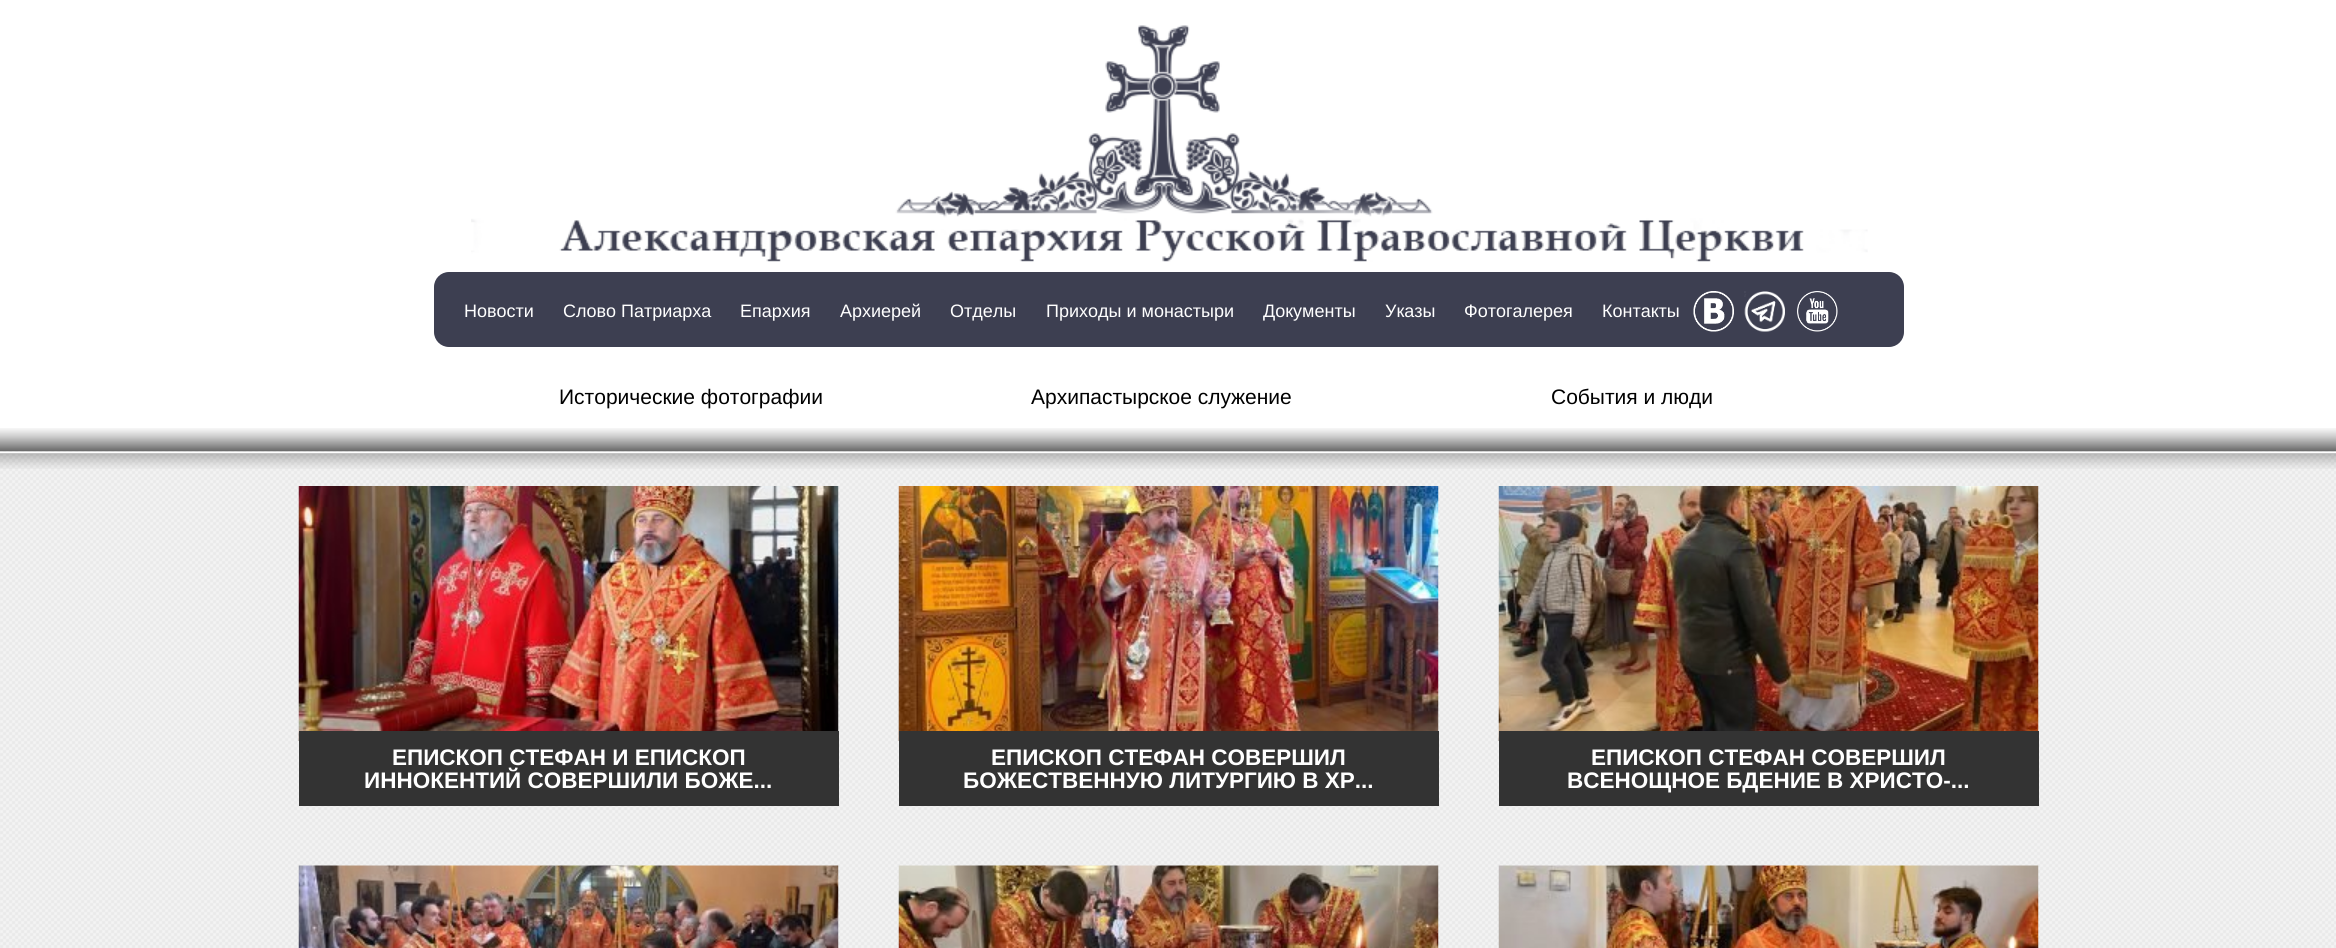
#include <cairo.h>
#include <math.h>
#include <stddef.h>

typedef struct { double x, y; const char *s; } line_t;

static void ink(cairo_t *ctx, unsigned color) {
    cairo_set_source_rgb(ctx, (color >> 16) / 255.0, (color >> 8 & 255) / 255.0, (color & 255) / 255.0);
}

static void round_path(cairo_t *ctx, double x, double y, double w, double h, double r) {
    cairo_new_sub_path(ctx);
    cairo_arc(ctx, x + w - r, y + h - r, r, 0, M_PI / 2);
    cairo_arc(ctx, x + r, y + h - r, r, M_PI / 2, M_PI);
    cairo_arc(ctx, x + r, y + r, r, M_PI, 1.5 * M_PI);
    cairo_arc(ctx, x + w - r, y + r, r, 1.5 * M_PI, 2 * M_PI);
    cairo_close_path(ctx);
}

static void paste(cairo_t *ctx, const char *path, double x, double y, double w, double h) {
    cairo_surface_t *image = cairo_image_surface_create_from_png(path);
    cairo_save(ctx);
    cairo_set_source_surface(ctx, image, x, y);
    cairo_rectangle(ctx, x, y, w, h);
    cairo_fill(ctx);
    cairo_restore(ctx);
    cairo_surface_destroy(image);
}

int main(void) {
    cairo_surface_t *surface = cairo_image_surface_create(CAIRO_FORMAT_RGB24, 2336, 948);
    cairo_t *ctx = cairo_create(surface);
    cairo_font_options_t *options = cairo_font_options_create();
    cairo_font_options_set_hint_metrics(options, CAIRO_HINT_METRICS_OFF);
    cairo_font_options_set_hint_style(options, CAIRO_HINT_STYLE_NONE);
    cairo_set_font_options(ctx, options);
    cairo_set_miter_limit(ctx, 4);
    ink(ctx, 0xFFFFFF);
    cairo_paint(ctx);
    paste(ctx, "media/1.png", 471, 25, 1397, 237);
    ink(ctx, 0x3D3F51);
    round_path(ctx, 434, 272, 1470, 75, 15);
    cairo_fill(ctx);
    cairo_select_font_face(ctx, "Liberation Sans", CAIRO_FONT_SLANT_NORMAL, CAIRO_FONT_WEIGHT_NORMAL);
    cairo_set_font_size(ctx, 18);
    ink(ctx, 0xFFFFFF);
    {
        static const line_t items[] = {
            {464, 317, "Новости"},
            {563, 317, "Слово Патриарха"},
            {740, 317, "Епархия"},
            {840, 317, "Архиерей"},
            {950, 317, "Отделы"},
            {1046, 317, "Приходы и монастыри"},
            {1263, 317, "Документы"},
            {1385, 317, "Указы"},
            {1464, 317, "Фотогалерея"},
            {1602, 317, "Контакты"},
        };
        for (size_t i = 0; i < sizeof items / sizeof *items; i++) {
            cairo_move_to(ctx, items[i].x, items[i].y);
            cairo_show_text(ctx, items[i].s);
        }
    }
    paste(ctx, "media/2.png", 1693, 291, 41, 41);
    paste(ctx, "media/3.png", 1744, 291, 41, 41);
    paste(ctx, "media/4.png", 1797, 291, 41, 41);
    cairo_set_font_size(ctx, 21);
    ink(ctx, 0x000000);
    {
        static const line_t items[] = {
            {559, 404, "Исторические фотографии"},
            {1031, 404, "Архипастырское служение"},
            {1551, 404, "События и люди"},
        };
        for (size_t i = 0; i < sizeof items / sizeof *items; i++) {
            cairo_move_to(ctx, items[i].x, items[i].y);
            cairo_show_text(ctx, items[i].s);
        }
    }
    paste(ctx, "media/5.png", 0, 428, 2336, 24);
    paste(ctx, "media/6.png", 0, 451, 2336, 497);
    ink(ctx, 0xFFFFFF);
    cairo_rectangle(ctx, 0, 452, 2336, 2);
    cairo_fill(ctx);
    paste(ctx, "media/7.png", 0, 453, 2336, 16);
    paste(ctx, "media/8.png", 298, 486, 541, 255);
    ink(ctx, 0x333333);
    cairo_rectangle(ctx, 299, 731, 540, 75);
    cairo_fill(ctx);
    cairo_select_font_face(ctx, "Liberation Sans", CAIRO_FONT_SLANT_NORMAL, CAIRO_FONT_WEIGHT_BOLD);
    cairo_set_font_size(ctx, 22.5);
    ink(ctx, 0xFFFFFF);
    cairo_move_to(ctx, 392, 765);
    cairo_show_text(ctx, "ЕПИСКОП СТЕФАН И ЕПИСКОП");
    cairo_move_to(ctx, 364, 788);
    cairo_show_text(ctx, "ИННОКЕНТИЙ СОВЕРШИЛИ БОЖЕ...");
    paste(ctx, "media/9.png", 898, 486, 541, 255);
    ink(ctx, 0x333333);
    cairo_rectangle(ctx, 899, 731, 540, 75);
    cairo_fill(ctx);
    ink(ctx, 0xFFFFFF);
    cairo_move_to(ctx, 991, 765);
    cairo_show_text(ctx, "ЕПИСКОП СТЕФАН СОВЕРШИЛ");
    cairo_move_to(ctx, 963, 788);
    cairo_show_text(ctx, "БОЖЕСТВЕННУЮ ЛИТУРГИЮ В ХР...");
    paste(ctx, "media/10.png", 1498, 486, 541, 255);
    ink(ctx, 0x333333);
    cairo_rectangle(ctx, 1499, 731, 540, 75);
    cairo_fill(ctx);
    ink(ctx, 0xFFFFFF);
    cairo_move_to(ctx, 1591, 765);
    cairo_show_text(ctx, "ЕПИСКОП СТЕФАН СОВЕРШИЛ");
    cairo_move_to(ctx, 1567, 788);
    cairo_show_text(ctx, "ВСЕНОЩНОЕ БДЕНИЕ В ХРИСТО-...");
    paste(ctx, "media/11.png", 298, 865, 541, 83);
    paste(ctx, "media/12.png", 898, 865, 541, 83);
    paste(ctx, "media/13.png", 1498, 865, 541, 83);
    cairo_surface_write_to_png(surface, "image.png");
    cairo_font_options_destroy(options);
    cairo_destroy(ctx);
    cairo_surface_destroy(surface);
    return 0;
}
